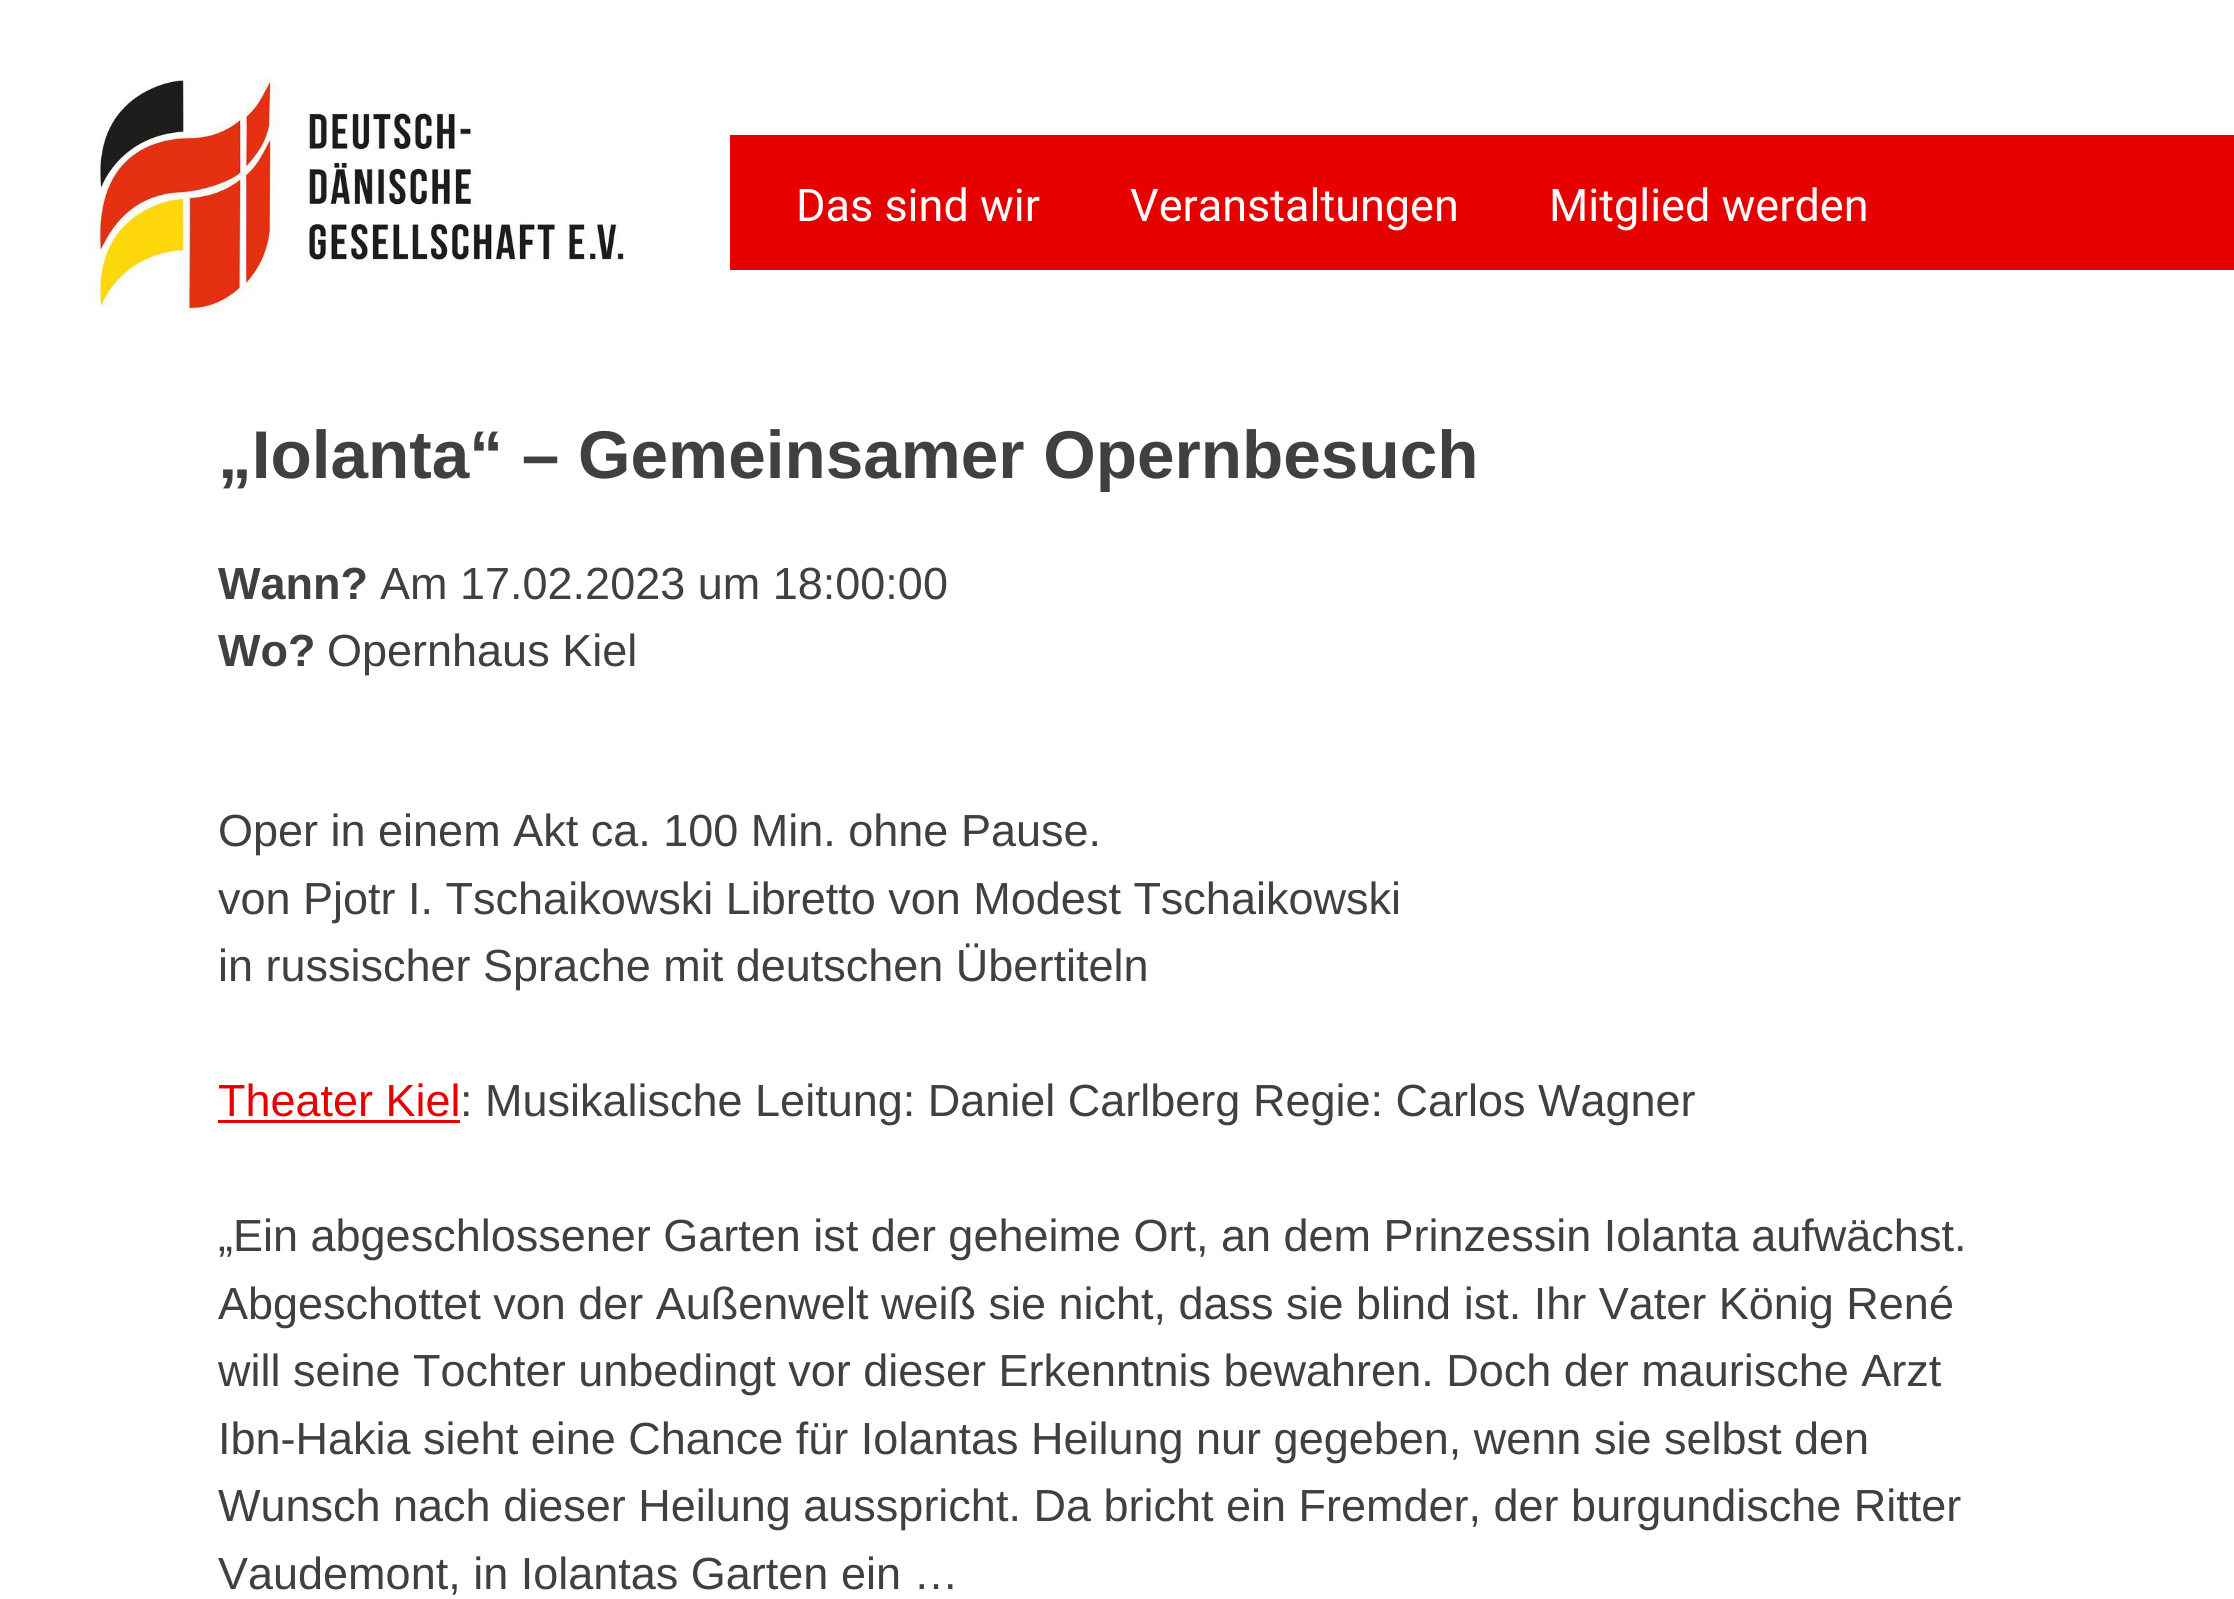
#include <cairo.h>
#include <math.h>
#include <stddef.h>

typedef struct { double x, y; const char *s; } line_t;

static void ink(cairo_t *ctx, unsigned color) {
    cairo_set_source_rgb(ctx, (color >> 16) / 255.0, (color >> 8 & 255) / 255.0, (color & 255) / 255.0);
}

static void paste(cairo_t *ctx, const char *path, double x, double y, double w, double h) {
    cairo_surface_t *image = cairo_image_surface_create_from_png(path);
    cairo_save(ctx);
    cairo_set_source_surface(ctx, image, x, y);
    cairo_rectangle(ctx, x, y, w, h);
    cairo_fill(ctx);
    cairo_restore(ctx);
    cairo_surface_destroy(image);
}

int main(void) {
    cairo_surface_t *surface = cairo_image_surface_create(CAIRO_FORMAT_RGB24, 2234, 1599);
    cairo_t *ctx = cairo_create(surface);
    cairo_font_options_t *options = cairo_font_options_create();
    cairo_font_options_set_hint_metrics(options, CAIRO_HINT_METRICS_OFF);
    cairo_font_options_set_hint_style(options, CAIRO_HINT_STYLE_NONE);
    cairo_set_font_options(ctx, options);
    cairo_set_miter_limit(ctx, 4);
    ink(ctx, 0xFFFFFF);
    cairo_paint(ctx);
    paste(ctx, "media/1.png", 90, 78, 535, 235);
    ink(ctx, 0xE60000);
    cairo_rectangle(ctx, 730, 135, 1504, 135);
    cairo_fill(ctx);
    cairo_select_font_face(ctx, "Roboto", CAIRO_FONT_SLANT_NORMAL, CAIRO_FONT_WEIGHT_NORMAL);
    cairo_set_font_size(ctx, 45);
    ink(ctx, 0xFFFFFF);
    {
        static const line_t items[] = {
            {796, 221, "Das sind wir"},
            {1130, 221, "Veranstaltungen"},
            {1549, 221, "Mitglied werden"},
        };
        for (size_t i = 0; i < sizeof items / sizeof *items; i++) {
            cairo_move_to(ctx, items[i].x, items[i].y);
            cairo_show_text(ctx, items[i].s);
        }
    }
    cairo_select_font_face(ctx, "Liberation Sans", CAIRO_FONT_SLANT_NORMAL, CAIRO_FONT_WEIGHT_BOLD);
    cairo_set_font_size(ctx, 67.5);
    ink(ctx, 0x404040);
    cairo_move_to(ctx, 218, 478);
    cairo_show_text(ctx, "„Iolanta“ – Gemeinsamer Opernbesuch");
    cairo_set_font_size(ctx, 45);
    cairo_move_to(ctx, 218, 599);
    cairo_show_text(ctx, "Wann?");
    cairo_select_font_face(ctx, "Liberation Sans", CAIRO_FONT_SLANT_NORMAL, CAIRO_FONT_WEIGHT_NORMAL);
    cairo_move_to(ctx, 380, 599);
    cairo_show_text(ctx, "Am 17.02.2023 um 18:00:00");
    cairo_select_font_face(ctx, "Liberation Sans", CAIRO_FONT_SLANT_NORMAL, CAIRO_FONT_WEIGHT_BOLD);
    cairo_move_to(ctx, 218, 666);
    cairo_show_text(ctx, "Wo?");
    cairo_select_font_face(ctx, "Liberation Sans", CAIRO_FONT_SLANT_NORMAL, CAIRO_FONT_WEIGHT_NORMAL);
    {
        static const line_t items[] = {
            {327, 666, "Opernhaus Kiel"},
            {218, 846, "Oper in einem Akt ca. 100 Min. ohne Pause."},
            {218, 914, "von Pjotr I. Tschaikowski Libretto von Modest Tschaikowski"},
            {218, 981, "in russischer Sprache mit deutschen Übertiteln"},
        };
        for (size_t i = 0; i < sizeof items / sizeof *items; i++) {
            cairo_move_to(ctx, items[i].x, items[i].y);
            cairo_show_text(ctx, items[i].s);
        }
    }
    ink(ctx, 0xE60000);
    cairo_move_to(ctx, 218, 1116);
    cairo_show_text(ctx, "Theater Kiel");
    cairo_rectangle(ctx, 218, 1120, 242, 3);
    cairo_fill(ctx);
    ink(ctx, 0x404040);
    {
        static const line_t items[] = {
            {460, 1116, ": Musikalische Leitung: Daniel Carlberg Regie: Carlos Wagner"},
            {218, 1251, "„Ein abgeschlossener Garten ist der geheime Ort, an dem Prinzessin Iolanta aufwächst."},
            {218, 1319, "Abgeschottet von der Außenwelt weiß sie nicht, dass sie blind ist. Ihr Vater König René"},
            {218, 1386, "will seine Tochter unbedingt vor dieser Erkenntnis bewahren. Doch der maurische Arzt"},
            {218, 1454, "Ibn-Hakia sieht eine Chance für Iolantas Heilung nur gegeben, wenn sie selbst den"},
            {218, 1521, "Wunsch nach dieser Heilung ausspricht. Da bricht ein Fremder, der burgundische Ritter"},
            {218, 1589, "Vaudemont, in Iolantas Garten ein …"},
        };
        for (size_t i = 0; i < sizeof items / sizeof *items; i++) {
            cairo_move_to(ctx, items[i].x, items[i].y);
            cairo_show_text(ctx, items[i].s);
        }
    }
    cairo_surface_write_to_png(surface, "image.png");
    cairo_font_options_destroy(options);
    cairo_destroy(ctx);
    cairo_surface_destroy(surface);
    return 0;
}
